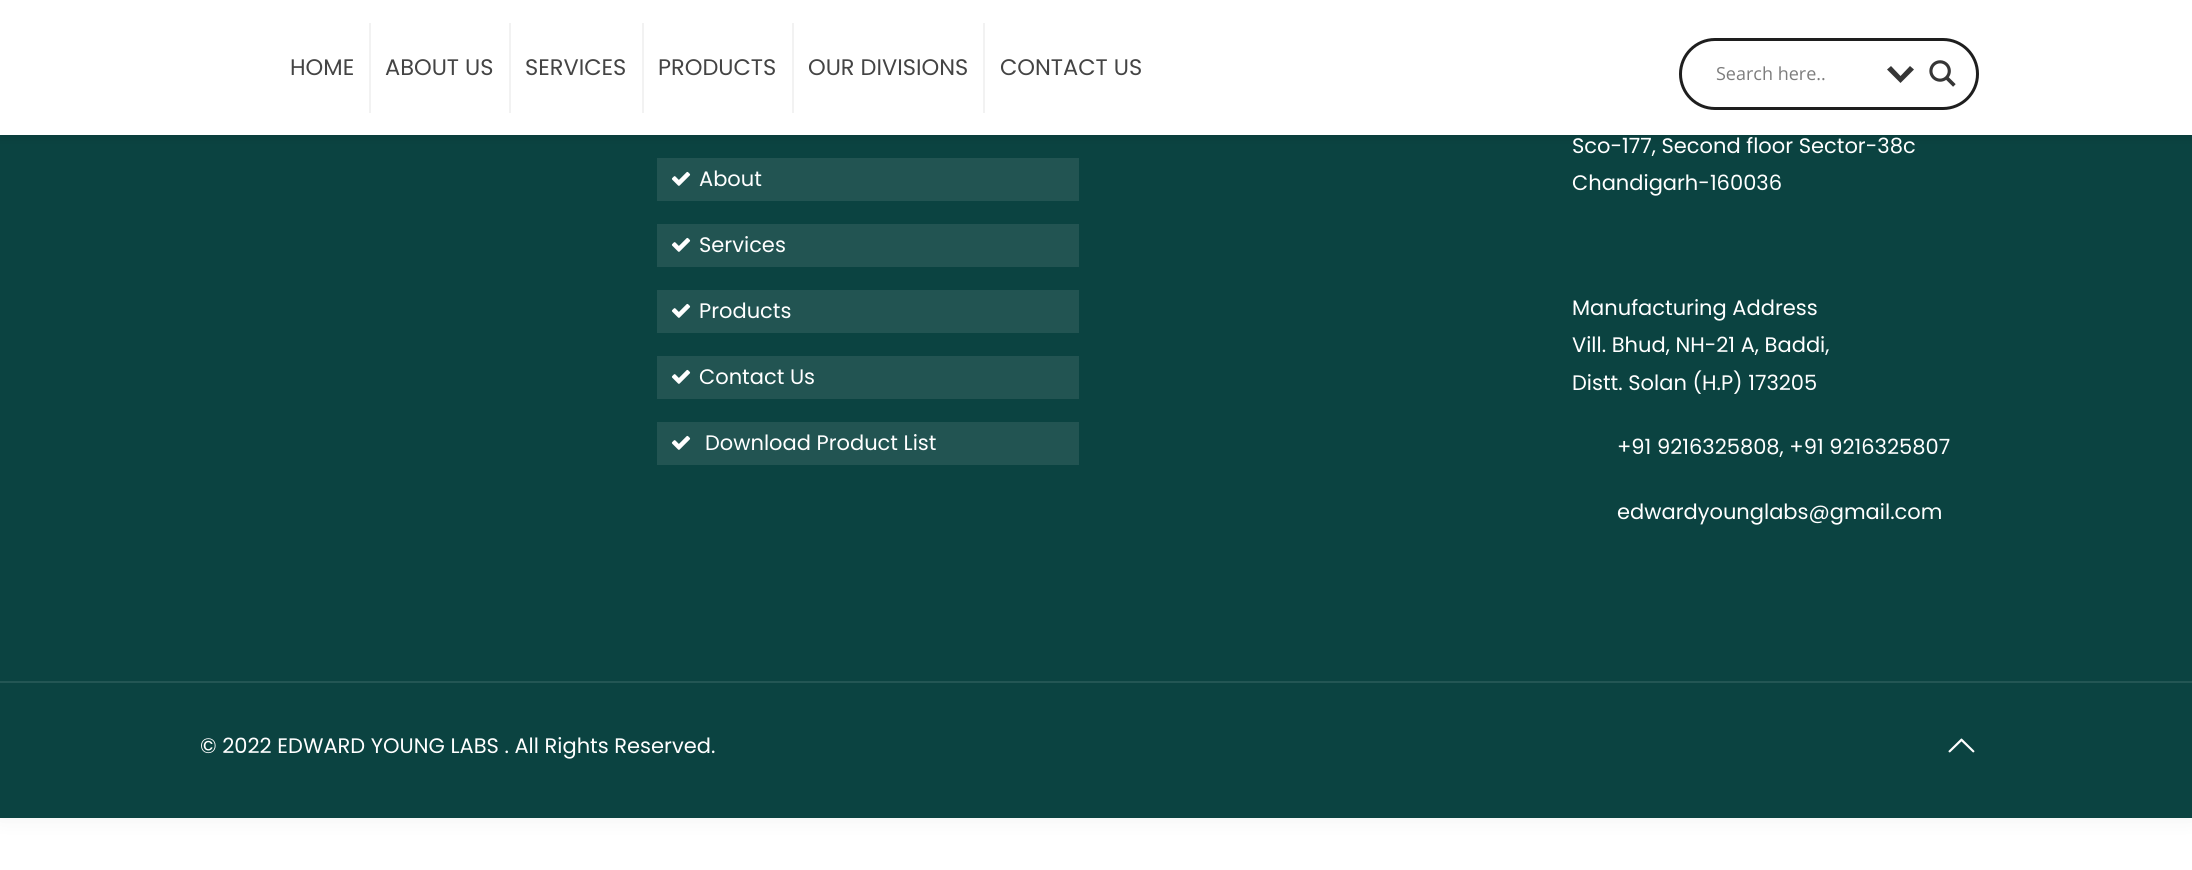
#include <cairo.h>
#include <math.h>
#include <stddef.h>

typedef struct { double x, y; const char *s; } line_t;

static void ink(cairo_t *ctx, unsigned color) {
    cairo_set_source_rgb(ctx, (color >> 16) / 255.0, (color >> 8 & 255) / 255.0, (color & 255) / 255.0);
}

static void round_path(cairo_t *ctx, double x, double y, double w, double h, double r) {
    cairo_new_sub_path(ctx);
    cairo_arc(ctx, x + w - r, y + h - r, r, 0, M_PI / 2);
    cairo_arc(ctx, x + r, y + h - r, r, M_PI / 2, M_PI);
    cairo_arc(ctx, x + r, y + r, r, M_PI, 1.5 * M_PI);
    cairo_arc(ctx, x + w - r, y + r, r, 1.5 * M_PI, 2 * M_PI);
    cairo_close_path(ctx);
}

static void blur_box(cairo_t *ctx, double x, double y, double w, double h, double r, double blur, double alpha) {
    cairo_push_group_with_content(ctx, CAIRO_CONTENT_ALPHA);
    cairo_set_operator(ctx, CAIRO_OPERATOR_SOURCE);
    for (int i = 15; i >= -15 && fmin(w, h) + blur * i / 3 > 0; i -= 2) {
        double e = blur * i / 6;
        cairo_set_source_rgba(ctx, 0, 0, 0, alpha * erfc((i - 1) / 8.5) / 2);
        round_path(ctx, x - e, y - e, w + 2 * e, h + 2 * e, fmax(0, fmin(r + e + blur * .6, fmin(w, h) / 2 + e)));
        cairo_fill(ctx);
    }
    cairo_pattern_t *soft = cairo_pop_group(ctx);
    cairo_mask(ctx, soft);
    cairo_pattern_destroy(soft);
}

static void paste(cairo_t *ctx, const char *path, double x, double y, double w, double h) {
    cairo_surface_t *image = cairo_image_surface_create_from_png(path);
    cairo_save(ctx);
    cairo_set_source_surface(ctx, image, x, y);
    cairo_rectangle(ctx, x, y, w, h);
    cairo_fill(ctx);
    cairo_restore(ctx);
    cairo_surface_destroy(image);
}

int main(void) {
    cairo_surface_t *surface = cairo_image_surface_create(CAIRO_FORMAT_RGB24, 2192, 870);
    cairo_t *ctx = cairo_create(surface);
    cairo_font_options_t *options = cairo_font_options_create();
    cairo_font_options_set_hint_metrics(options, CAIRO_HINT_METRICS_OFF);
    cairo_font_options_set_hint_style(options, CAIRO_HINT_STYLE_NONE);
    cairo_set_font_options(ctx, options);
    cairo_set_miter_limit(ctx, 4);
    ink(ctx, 0xFFFFFF);
    cairo_paint(ctx);
    ink(ctx, 0x000000);
    blur_box(ctx, 0, -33, 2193, 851, 0, 11, 0.06);
    ink(ctx, 0x0B4341);
    cairo_rectangle(ctx, 0, 135, 2192, 683);
    cairo_fill(ctx);
    ink(ctx, 0x000000);
    blur_box(ctx, 0, 3, 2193, 135, 0, 4, 0.1);
    ink(ctx, 0xFFFFFF);
    cairo_rectangle(ctx, 0, 0, 2192, 135);
    cairo_fill(ctx);
    ink(ctx, 0xF2F2F2);
    cairo_rectangle(ctx, 369, 23, 2, 90);
    cairo_fill(ctx);
    cairo_select_font_face(ctx, "Poppins", CAIRO_FONT_SLANT_NORMAL, CAIRO_FONT_WEIGHT_NORMAL);
    cairo_set_font_size(ctx, 22.5);
    ink(ctx, 0x444444);
    cairo_move_to(ctx, 290, 75);
    cairo_show_text(ctx, "HOME");
    ink(ctx, 0xF2F2F2);
    cairo_rectangle(ctx, 509, 23, 2, 90);
    cairo_fill(ctx);
    ink(ctx, 0x444444);
    cairo_move_to(ctx, 385, 75);
    cairo_show_text(ctx, "ABOUT US");
    ink(ctx, 0xF2F2F2);
    cairo_rectangle(ctx, 642, 23, 2, 90);
    cairo_fill(ctx);
    ink(ctx, 0x444444);
    cairo_move_to(ctx, 525, 75);
    cairo_show_text(ctx, "SERVICES");
    ink(ctx, 0xF2F2F2);
    cairo_rectangle(ctx, 792, 23, 2, 90);
    cairo_fill(ctx);
    ink(ctx, 0x444444);
    cairo_move_to(ctx, 658, 75);
    cairo_show_text(ctx, "PRODUCTS");
    ink(ctx, 0xF2F2F2);
    cairo_rectangle(ctx, 983, 23, 2, 90);
    cairo_fill(ctx);
    ink(ctx, 0x444444);
    cairo_move_to(ctx, 808, 75);
    cairo_show_text(ctx, "OUR DIVISIONS");
    cairo_move_to(ctx, 1000, 75);
    cairo_show_text(ctx, "CONTACT US");
    round_path(ctx, 1680.5, 39.5, 297, 69, 34.5);
    ink(ctx, 0x1E1E1E);
    cairo_set_line_width(ctx, 3);
    cairo_stroke(ctx);
    cairo_select_font_face(ctx, "Open Sans", CAIRO_FONT_SLANT_NORMAL, CAIRO_FONT_WEIGHT_NORMAL);
    cairo_set_font_size(ctx, 18);
    ink(ctx, 0x7D7D7D);
    cairo_move_to(ctx, 1716, 80);
    cairo_show_text(ctx, "Search here..");
    ink(ctx, 0x363636);
    cairo_new_path(ctx);
    cairo_move_to(ctx, 1910, 66);
    cairo_line_to(ctx, 1914, 69.5);
    cairo_line_to(ctx, 1900.5, 83);
    cairo_line_to(ctx, 1887, 69.5);
    cairo_line_to(ctx, 1891, 66);
    cairo_line_to(ctx, 1900.5, 76);
    cairo_close_path(ctx);
    cairo_fill(ctx);
    paste(ctx, "media/1.png", 1929, 60, 27, 27);
    ink(ctx, 0x225452);
    cairo_rectangle(ctx, 657, 158, 422, 43);
    cairo_fill(ctx);
    paste(ctx, "media/2.png", 671, 171, 20, 15);
    cairo_select_font_face(ctx, "Poppins", CAIRO_FONT_SLANT_NORMAL, CAIRO_FONT_WEIGHT_NORMAL);
    cairo_set_font_size(ctx, 21);
    ink(ctx, 0xFFFFFF);
    cairo_move_to(ctx, 699, 186);
    cairo_show_text(ctx, "About");
    ink(ctx, 0x225452);
    cairo_rectangle(ctx, 657, 224, 422, 43);
    cairo_fill(ctx);
    paste(ctx, "media/2.png", 671, 237, 20, 15);
    ink(ctx, 0xFFFFFF);
    cairo_move_to(ctx, 699, 252);
    cairo_show_text(ctx, "Services");
    ink(ctx, 0x225452);
    cairo_rectangle(ctx, 657, 290, 422, 43);
    cairo_fill(ctx);
    paste(ctx, "media/2.png", 671, 303, 20, 15);
    ink(ctx, 0xFFFFFF);
    cairo_move_to(ctx, 699, 318);
    cairo_show_text(ctx, "Products");
    ink(ctx, 0x225452);
    cairo_rectangle(ctx, 657, 356, 422, 43);
    cairo_fill(ctx);
    paste(ctx, "media/2.png", 671, 369, 20, 15);
    ink(ctx, 0xFFFFFF);
    cairo_move_to(ctx, 699, 384);
    cairo_show_text(ctx, "Contact Us");
    ink(ctx, 0x225452);
    cairo_rectangle(ctx, 657, 422, 422, 43);
    cairo_fill(ctx);
    paste(ctx, "media/2.png", 671, 435, 20, 15);
    ink(ctx, 0xFFFFFF);
    {
        static const line_t items[] = {
            {705, 450, "Download Product List"},
            {1572, 153, "Sco-177, Second floor Sector-38c"},
            {1572, 190, "Chandigarh-160036"},
            {1572, 315, "Manufacturing Address"},
            {1572, 352, "Vill. Bhud, NH-21 A, Baddi,"},
            {1572, 390, "Distt. Solan (H.P) 173205"},
            {1617, 454, "+91 9216325808, +91 9216325807"},
            {1617, 519, "edwardyounglabs@gmail.com"},
        };
        for (size_t i = 0; i < sizeof items / sizeof *items; i++) {
            cairo_move_to(ctx, items[i].x, items[i].y);
            cairo_show_text(ctx, items[i].s);
        }
    }
    ink(ctx, 0x235654);
    cairo_rectangle(ctx, 0, 681, 2192, 2);
    cairo_fill(ctx);
    ink(ctx, 0xFFFFFF);
    cairo_move_to(ctx, 200, 753);
    cairo_show_text(ctx, "© 2022 EDWARD YOUNG LABS . All Rights Reserved.");
    paste(ctx, "media/3.png", 1948, 738, 27, 15);
    cairo_surface_write_to_png(surface, "image.png");
    cairo_font_options_destroy(options);
    cairo_destroy(ctx);
    cairo_surface_destroy(surface);
    return 0;
}
